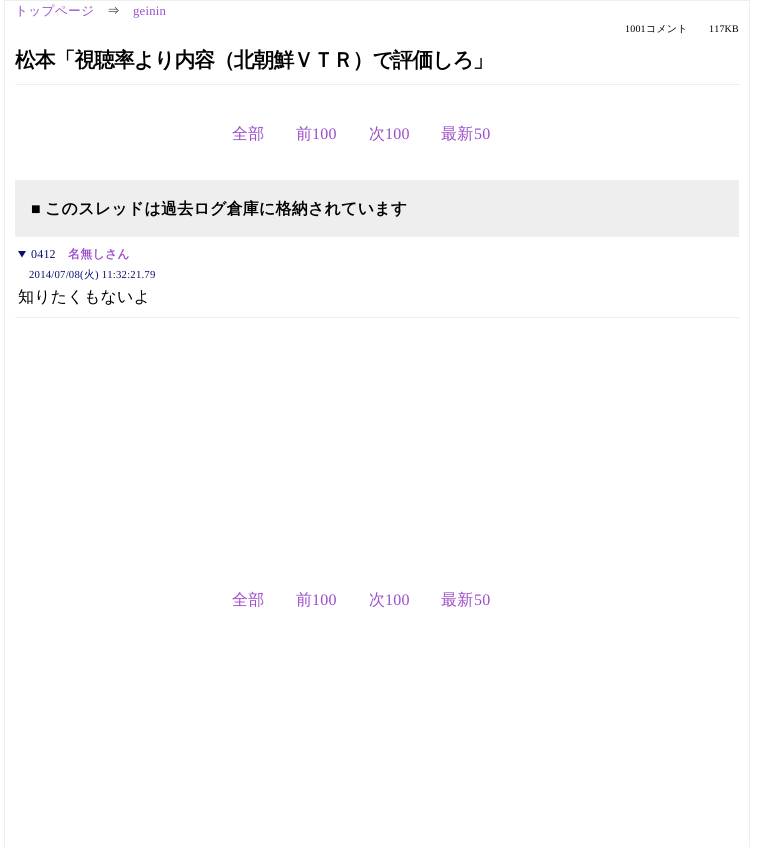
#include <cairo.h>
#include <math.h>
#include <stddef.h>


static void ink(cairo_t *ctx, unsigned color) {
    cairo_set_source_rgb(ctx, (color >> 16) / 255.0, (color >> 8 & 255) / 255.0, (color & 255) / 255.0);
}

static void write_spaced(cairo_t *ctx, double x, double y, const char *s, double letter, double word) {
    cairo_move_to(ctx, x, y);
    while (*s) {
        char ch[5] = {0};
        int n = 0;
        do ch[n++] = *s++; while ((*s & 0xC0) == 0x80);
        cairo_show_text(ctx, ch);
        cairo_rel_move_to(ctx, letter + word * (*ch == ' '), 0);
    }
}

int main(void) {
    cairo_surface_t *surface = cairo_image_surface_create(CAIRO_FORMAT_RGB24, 774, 847);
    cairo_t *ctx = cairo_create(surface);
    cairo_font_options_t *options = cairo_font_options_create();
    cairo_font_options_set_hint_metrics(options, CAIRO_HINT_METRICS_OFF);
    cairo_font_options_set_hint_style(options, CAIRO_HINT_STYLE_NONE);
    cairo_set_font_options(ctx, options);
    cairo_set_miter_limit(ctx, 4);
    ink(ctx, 0xFFFFFF);
    cairo_paint(ctx);
    cairo_rectangle(ctx, 4.5, 0.5, 745, 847);
    ink(ctx, 0xEEEEEE);
    cairo_set_line_width(ctx, 1);
    cairo_stroke(ctx);
    cairo_select_font_face(ctx, "WenQuanYi Zen Hei Medium", CAIRO_FONT_SLANT_NORMAL, CAIRO_FONT_WEIGHT_NORMAL);
    cairo_set_font_size(ctx, 12.75);
    ink(ctx, 0x9B4DCA);
    write_spaced(ctx, 15, 15, "トップページ", 0.2, 0);
    ink(ctx, 0x000000);
    write_spaced(ctx, 107, 15, "⇒", 0.2, 0);
    cairo_select_font_face(ctx, "Liberation Serif", CAIRO_FONT_SLANT_NORMAL, CAIRO_FONT_WEIGHT_NORMAL);
    ink(ctx, 0x9B4DCA);
    write_spaced(ctx, 133, 15, "geinin", 0.2, 0);
    cairo_set_font_size(ctx, 10);
    ink(ctx, 0x000000);
    write_spaced(ctx, 625, 32, "1001", 0.2, 0);
    cairo_select_font_face(ctx, "WenQuanYi Zen Hei Medium", CAIRO_FONT_SLANT_NORMAL, CAIRO_FONT_WEIGHT_NORMAL);
    write_spaced(ctx, 646, 32, "コメント", 0.2, 0);
    cairo_select_font_face(ctx, "Liberation Serif", CAIRO_FONT_SLANT_NORMAL, CAIRO_FONT_WEIGHT_NORMAL);
    write_spaced(ctx, 709, 32, "117KB", 0.2, 0);
    ink(ctx, 0xEEEEEE);
    cairo_rectangle(ctx, 15, 84, 724, 1);
    cairo_fill(ctx);
    cairo_select_font_face(ctx, "WenQuanYi Zen Hei", CAIRO_FONT_SLANT_NORMAL, CAIRO_FONT_WEIGHT_BOLD);
    cairo_set_font_size(ctx, 20.8);
    ink(ctx, 0x000000);
    write_spaced(ctx, 15, 67, "松本「視聴率より内容（北朝鮮ＶＴＲ）で評価しろ」", -1, 0);
    cairo_select_font_face(ctx, "WenQuanYi Zen Hei Medium", CAIRO_FONT_SLANT_NORMAL, CAIRO_FONT_WEIGHT_NORMAL);
    cairo_set_font_size(ctx, 16);
    ink(ctx, 0x9B4DCA);
    write_spaced(ctx, 232, 139, "全部", 0.2, 0);
    write_spaced(ctx, 296, 139, "前", 0.2, 0);
    cairo_select_font_face(ctx, "Liberation Serif", CAIRO_FONT_SLANT_NORMAL, CAIRO_FONT_WEIGHT_NORMAL);
    write_spaced(ctx, 312, 139, "100", 0.2, 0);
    cairo_select_font_face(ctx, "WenQuanYi Zen Hei Medium", CAIRO_FONT_SLANT_NORMAL, CAIRO_FONT_WEIGHT_NORMAL);
    write_spaced(ctx, 369, 139, "次", 0.2, 0);
    cairo_select_font_face(ctx, "Liberation Serif", CAIRO_FONT_SLANT_NORMAL, CAIRO_FONT_WEIGHT_NORMAL);
    write_spaced(ctx, 385, 139, "100", 0.2, 0);
    cairo_select_font_face(ctx, "WenQuanYi Zen Hei Medium", CAIRO_FONT_SLANT_NORMAL, CAIRO_FONT_WEIGHT_NORMAL);
    write_spaced(ctx, 441, 139, "最新", 0.2, 0);
    cairo_select_font_face(ctx, "Liberation Serif", CAIRO_FONT_SLANT_NORMAL, CAIRO_FONT_WEIGHT_NORMAL);
    write_spaced(ctx, 474, 139, "50", 0.2, 0);
    ink(ctx, 0xEEEEEE);
    cairo_rectangle(ctx, 15, 180, 724, 57);
    cairo_fill(ctx);
    cairo_select_font_face(ctx, "Liberation Serif", CAIRO_FONT_SLANT_NORMAL, CAIRO_FONT_WEIGHT_BOLD);
    ink(ctx, 0x000000);
    write_spaced(ctx, 31, 214, "■", 0.2, 0);
    cairo_select_font_face(ctx, "WenQuanYi Zen Hei", CAIRO_FONT_SLANT_NORMAL, CAIRO_FONT_WEIGHT_BOLD);
    write_spaced(ctx, 45, 214, "このスレッドは過去ログ倉庫に格納されています", 0.2, 0);
    ink(ctx, 0xEEEEEE);
    cairo_rectangle(ctx, 15, 317, 724, 1);
    cairo_fill(ctx);
    ink(ctx, 0x0E0E6E);
    cairo_new_path(ctx);
    cairo_move_to(ctx, 18, 251);
    cairo_line_to(ctx, 26, 251);
    cairo_line_to(ctx, 22, 257.5);
    cairo_close_path(ctx);
    cairo_fill(ctx);
    cairo_select_font_face(ctx, "Liberation Serif", CAIRO_FONT_SLANT_NORMAL, CAIRO_FONT_WEIGHT_NORMAL);
    cairo_set_font_size(ctx, 12);
    write_spaced(ctx, 31, 258, "0412", 0.2, 0);
    cairo_select_font_face(ctx, "WenQuanYi Zen Hei", CAIRO_FONT_SLANT_NORMAL, CAIRO_FONT_WEIGHT_BOLD);
    ink(ctx, 0x9B4DCA);
    write_spaced(ctx, 68, 258, "名無しさん", 0.2, 0);
    cairo_select_font_face(ctx, "Liberation Serif", CAIRO_FONT_SLANT_NORMAL, CAIRO_FONT_WEIGHT_NORMAL);
    cairo_set_font_size(ctx, 10.75);
    ink(ctx, 0x0E0E6E);
    write_spaced(ctx, 29, 278, "2014/07/08(", 0.2, 0);
    cairo_select_font_face(ctx, "WenQuanYi Zen Hei Medium", CAIRO_FONT_SLANT_NORMAL, CAIRO_FONT_WEIGHT_NORMAL);
    write_spaced(ctx, 84, 278, "火", 0.2, 0);
    cairo_select_font_face(ctx, "Liberation Serif", CAIRO_FONT_SLANT_NORMAL, CAIRO_FONT_WEIGHT_NORMAL);
    write_spaced(ctx, 95, 278, ") 11:32:21.79", 0.2, 0);
    cairo_select_font_face(ctx, "WenQuanYi Zen Hei Medium", CAIRO_FONT_SLANT_NORMAL, CAIRO_FONT_WEIGHT_NORMAL);
    cairo_set_font_size(ctx, 16);
    ink(ctx, 0x000000);
    write_spaced(ctx, 18, 302, "知りたくもないよ", 0.2, 0);
    ink(ctx, 0x9B4DCA);
    write_spaced(ctx, 232, 605, "全部", 0.2, 0);
    write_spaced(ctx, 296, 605, "前", 0.2, 0);
    cairo_select_font_face(ctx, "Liberation Serif", CAIRO_FONT_SLANT_NORMAL, CAIRO_FONT_WEIGHT_NORMAL);
    write_spaced(ctx, 312, 605, "100", 0.2, 0);
    cairo_select_font_face(ctx, "WenQuanYi Zen Hei Medium", CAIRO_FONT_SLANT_NORMAL, CAIRO_FONT_WEIGHT_NORMAL);
    write_spaced(ctx, 369, 605, "次", 0.2, 0);
    cairo_select_font_face(ctx, "Liberation Serif", CAIRO_FONT_SLANT_NORMAL, CAIRO_FONT_WEIGHT_NORMAL);
    write_spaced(ctx, 385, 605, "100", 0.2, 0);
    cairo_select_font_face(ctx, "WenQuanYi Zen Hei Medium", CAIRO_FONT_SLANT_NORMAL, CAIRO_FONT_WEIGHT_NORMAL);
    write_spaced(ctx, 441, 605, "最新", 0.2, 0);
    cairo_select_font_face(ctx, "Liberation Serif", CAIRO_FONT_SLANT_NORMAL, CAIRO_FONT_WEIGHT_NORMAL);
    write_spaced(ctx, 474, 605, "50", 0.2, 0);
    cairo_surface_write_to_png(surface, "image.png");
    cairo_font_options_destroy(options);
    cairo_destroy(ctx);
    cairo_surface_destroy(surface);
    return 0;
}
